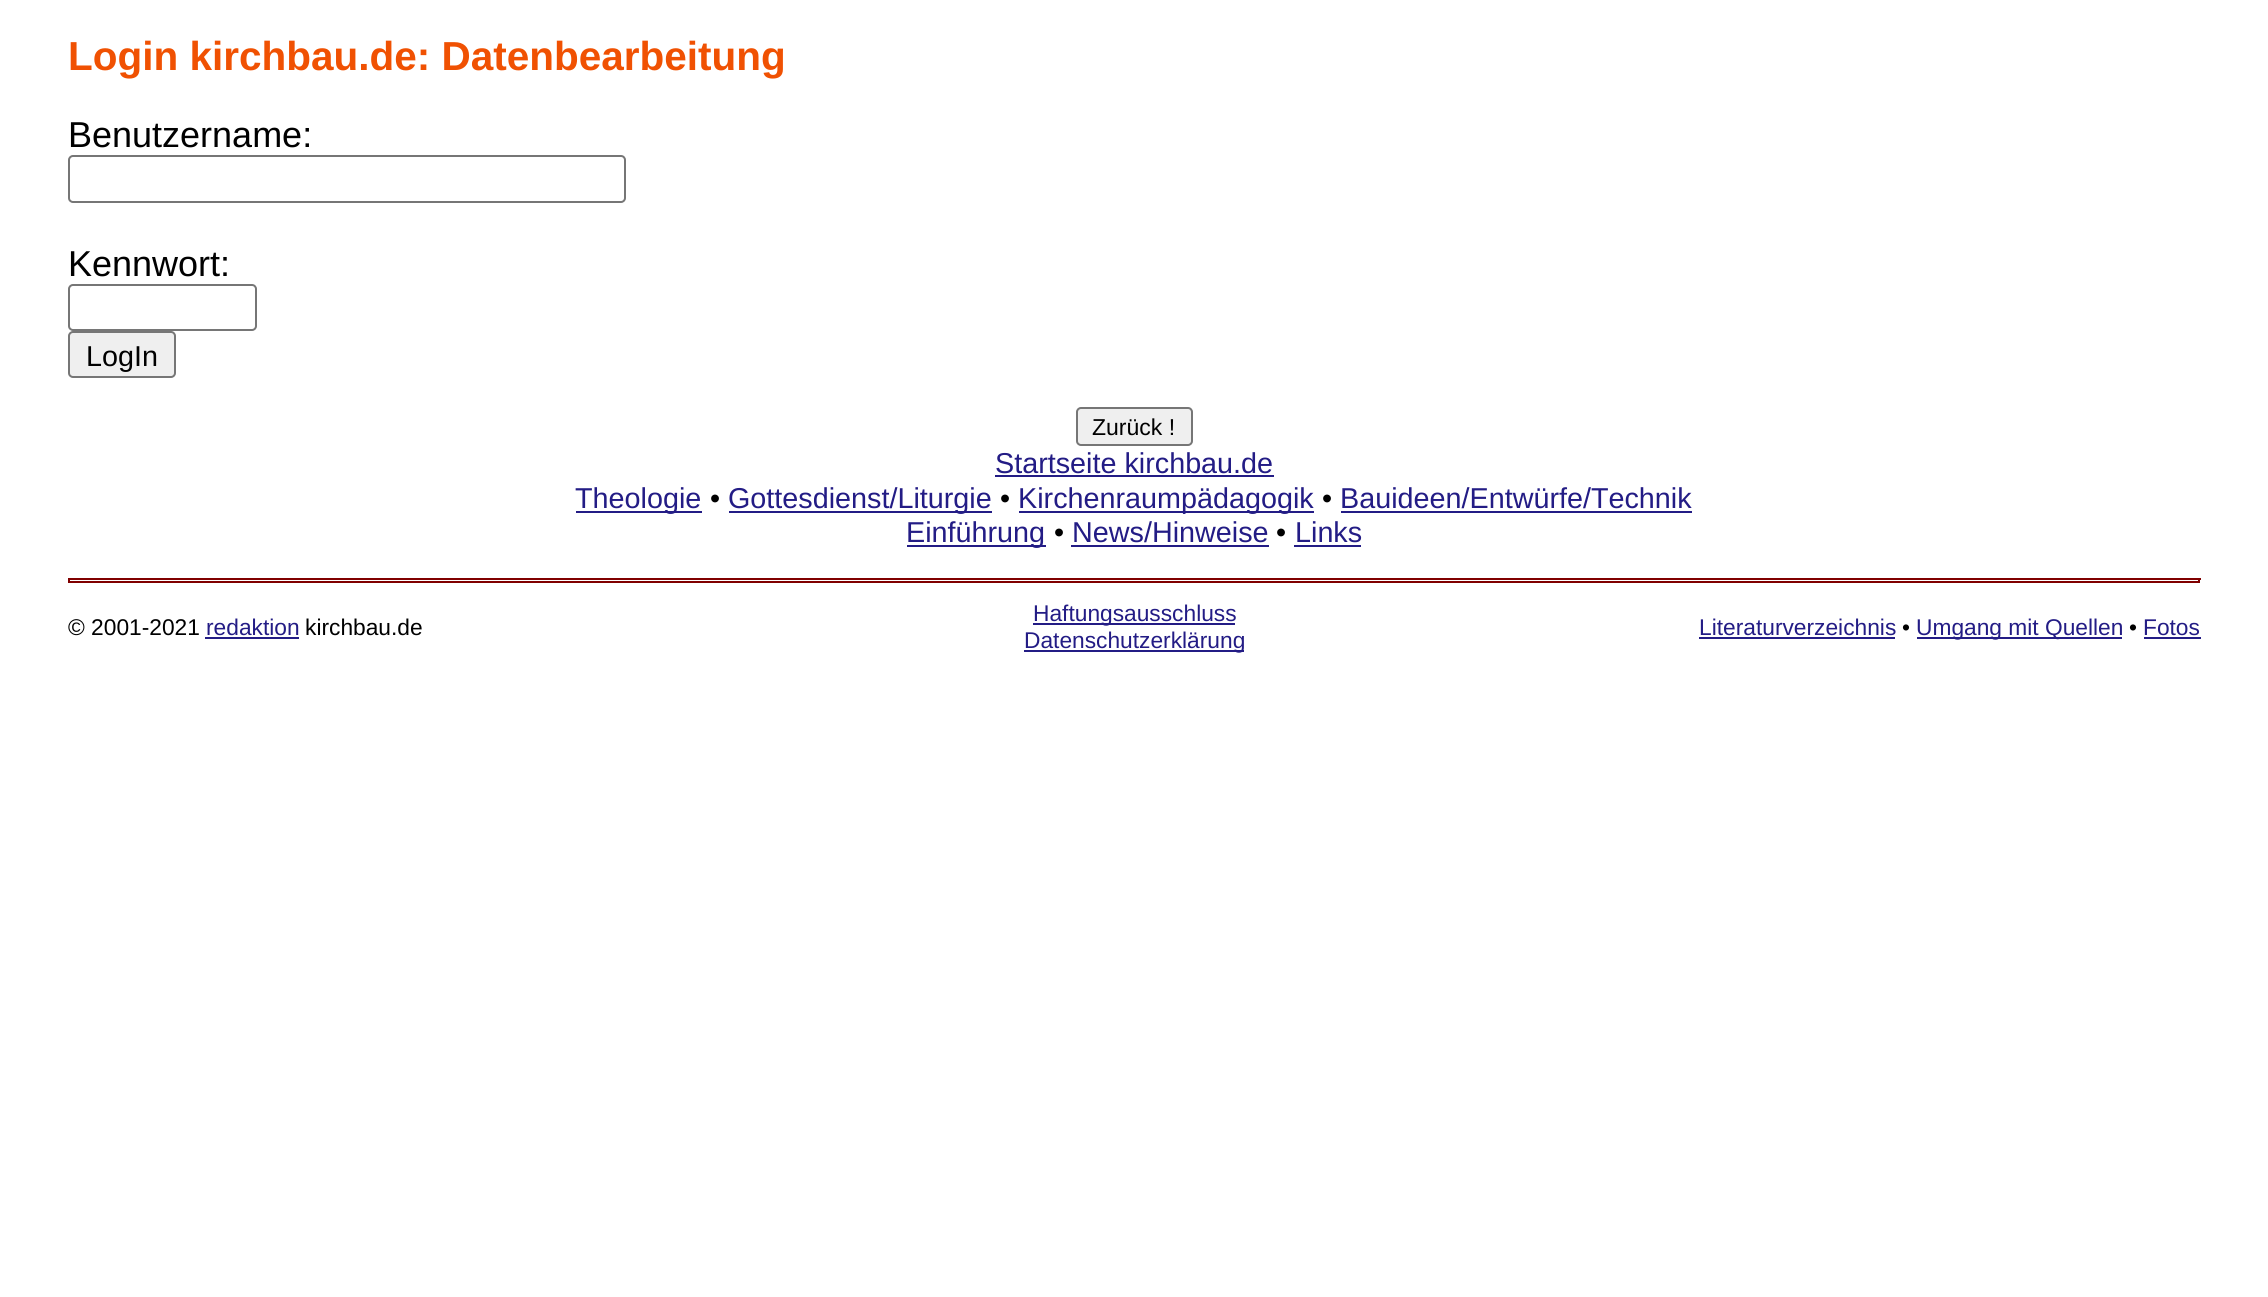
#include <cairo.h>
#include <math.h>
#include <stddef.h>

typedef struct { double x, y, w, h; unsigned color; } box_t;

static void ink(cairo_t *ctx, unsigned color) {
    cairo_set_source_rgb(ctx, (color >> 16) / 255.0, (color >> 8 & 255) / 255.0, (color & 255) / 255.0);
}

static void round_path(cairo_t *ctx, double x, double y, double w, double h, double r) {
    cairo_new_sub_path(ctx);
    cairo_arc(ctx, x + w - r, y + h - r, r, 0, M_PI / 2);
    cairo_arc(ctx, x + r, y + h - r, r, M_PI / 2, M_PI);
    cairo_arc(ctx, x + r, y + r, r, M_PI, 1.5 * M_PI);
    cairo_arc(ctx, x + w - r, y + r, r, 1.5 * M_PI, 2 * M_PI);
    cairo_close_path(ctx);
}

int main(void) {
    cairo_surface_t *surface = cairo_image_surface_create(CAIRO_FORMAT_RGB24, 2268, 1297);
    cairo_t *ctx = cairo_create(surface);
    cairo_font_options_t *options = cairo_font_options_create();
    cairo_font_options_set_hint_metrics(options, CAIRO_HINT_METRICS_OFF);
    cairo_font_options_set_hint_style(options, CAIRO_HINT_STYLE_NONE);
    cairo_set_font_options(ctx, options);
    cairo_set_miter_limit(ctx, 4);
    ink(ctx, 0xFFFFFF);
    cairo_paint(ctx);
    cairo_select_font_face(ctx, "Liberation Sans", CAIRO_FONT_SLANT_NORMAL, CAIRO_FONT_WEIGHT_BOLD);
    cairo_set_font_size(ctx, 40.5);
    ink(ctx, 0xF05102);
    cairo_move_to(ctx, 68, 70);
    cairo_show_text(ctx, "Login kirchbau.de: Datenbearbeitung");
    cairo_select_font_face(ctx, "Liberation Sans", CAIRO_FONT_SLANT_NORMAL, CAIRO_FONT_WEIGHT_NORMAL);
    cairo_set_font_size(ctx, 36);
    ink(ctx, 0x000000);
    cairo_move_to(ctx, 68, 147);
    cairo_show_text(ctx, "Benutzername:");
    round_path(ctx, 69, 156, 556, 46, 4);
    ink(ctx, 0x767676);
    cairo_stroke(ctx);
    ink(ctx, 0x000000);
    cairo_move_to(ctx, 68, 276);
    cairo_show_text(ctx, "Kennwort:");
    round_path(ctx, 69, 285, 187, 45, 4);
    ink(ctx, 0x767676);
    cairo_stroke(ctx);
    ink(ctx, 0xEFEFEF);
    round_path(ctx, 69, 332, 106, 45, 4);
    cairo_fill_preserve(ctx);
    ink(ctx, 0x767676);
    cairo_stroke(ctx);
    cairo_set_font_size(ctx, 28.75);
    ink(ctx, 0x000000);
    cairo_move_to(ctx, 86, 366);
    cairo_show_text(ctx, "LogIn");
    ink(ctx, 0xEFEFEF);
    round_path(ctx, 1077, 408, 115, 37, 4);
    cairo_fill_preserve(ctx);
    ink(ctx, 0x767676);
    cairo_stroke(ctx);
    cairo_set_font_size(ctx, 23);
    ink(ctx, 0x000000);
    cairo_move_to(ctx, 1092, 435);
    cairo_show_text(ctx, "Zurück !");
    cairo_set_font_size(ctx, 28.75);
    ink(ctx, 0x231C85);
    cairo_move_to(ctx, 995, 473);
    cairo_show_text(ctx, "Startseite kirchbau.de");
    cairo_rectangle(ctx, 995, 475, 279, 2);
    cairo_fill(ctx);
    cairo_rectangle(ctx, 576, 511, 126, 2);
    cairo_fill(ctx);
    cairo_move_to(ctx, 575, 508);
    cairo_show_text(ctx, "Theologie");
    ink(ctx, 0x000000);
    cairo_move_to(ctx, 710, 508);
    cairo_show_text(ctx, "•");
    ink(ctx, 0x231C85);
    cairo_rectangle(ctx, 729, 511, 263, 2);
    cairo_fill(ctx);
    cairo_move_to(ctx, 728, 508);
    cairo_show_text(ctx, "Gottesdienst/Liturgie");
    ink(ctx, 0x000000);
    cairo_move_to(ctx, 1000, 508);
    cairo_show_text(ctx, "•");
    ink(ctx, 0x231C85);
    cairo_rectangle(ctx, 1019, 511, 295, 2);
    cairo_fill(ctx);
    cairo_move_to(ctx, 1018, 508);
    cairo_show_text(ctx, "Kirchenraumpädagogik");
    ink(ctx, 0x000000);
    cairo_move_to(ctx, 1322, 508);
    cairo_show_text(ctx, "•");
    ink(ctx, 0x231C85);
    cairo_move_to(ctx, 1340, 508);
    cairo_show_text(ctx, "Bauideen/Entwürfe/Technik");
    cairo_rectangle(ctx, 1341, 511, 351, 2);
    cairo_fill(ctx);
    cairo_rectangle(ctx, 907, 545, 139, 2);
    cairo_fill(ctx);
    cairo_move_to(ctx, 906, 542);
    cairo_show_text(ctx, "Einführung");
    ink(ctx, 0x000000);
    cairo_move_to(ctx, 1054, 542);
    cairo_show_text(ctx, "•");
    ink(ctx, 0x231C85);
    cairo_move_to(ctx, 1072, 542);
    cairo_show_text(ctx, "News/Hinweise");
    cairo_rectangle(ctx, 1071, 545, 198, 2);
    cairo_fill(ctx);
    ink(ctx, 0x000000);
    cairo_move_to(ctx, 1276, 542);
    cairo_show_text(ctx, "•");
    ink(ctx, 0x231C85);
    cairo_move_to(ctx, 1295, 542);
    cairo_show_text(ctx, "Links");
    {
        static const box_t items[] = {
            {1294, 545, 67, 2, 0x231C85},
            {70, 581, 2128, 2, 0x800000},
            {68, 578, 2133, 2, 0x800000},
            {2198, 578, 2, 5, 0x800000},
            {68, 578, 2, 5, 0x800000},
        };
        for (size_t i = 0; i < sizeof items / sizeof *items; i++) {
            ink(ctx, items[i].color);
            cairo_rectangle(ctx, items[i].x, items[i].y, items[i].w, items[i].h);
            cairo_fill(ctx);
        }
    }
    cairo_set_font_size(ctx, 22.75);
    ink(ctx, 0x000000);
    cairo_move_to(ctx, 68, 635);
    cairo_show_text(ctx, "© 2001-2021");
    ink(ctx, 0x231C85);
    cairo_move_to(ctx, 206, 635);
    cairo_show_text(ctx, "redaktion");
    cairo_rectangle(ctx, 205, 637, 94, 2);
    cairo_fill(ctx);
    ink(ctx, 0x000000);
    cairo_move_to(ctx, 305, 635);
    cairo_show_text(ctx, "kirchbau.de");
    ink(ctx, 0x231C85);
    cairo_rectangle(ctx, 1033, 623, 202, 2);
    cairo_fill(ctx);
    cairo_move_to(ctx, 1033, 621);
    cairo_show_text(ctx, "Haftungsausschluss");
    cairo_rectangle(ctx, 1024, 650, 220, 2);
    cairo_fill(ctx);
    cairo_move_to(ctx, 1024, 648);
    cairo_show_text(ctx, "Datenschutzerklärung");
    cairo_move_to(ctx, 1699, 635);
    cairo_show_text(ctx, "Literaturverzeichnis");
    cairo_rectangle(ctx, 1699, 637, 196, 2);
    cairo_fill(ctx);
    ink(ctx, 0x000000);
    cairo_move_to(ctx, 1902, 635);
    cairo_show_text(ctx, "•");
    ink(ctx, 0x231C85);
    cairo_rectangle(ctx, 1917, 637, 205, 2);
    cairo_fill(ctx);
    cairo_move_to(ctx, 1916, 635);
    cairo_show_text(ctx, "Umgang mit Quellen");
    ink(ctx, 0x000000);
    cairo_move_to(ctx, 2129, 635);
    cairo_show_text(ctx, "•");
    ink(ctx, 0x231C85);
    cairo_move_to(ctx, 2143, 635);
    cairo_show_text(ctx, "Fotos");
    cairo_rectangle(ctx, 2144, 637, 57, 2);
    cairo_fill(ctx);
    cairo_surface_write_to_png(surface, "image.png");
    cairo_font_options_destroy(options);
    cairo_destroy(ctx);
    cairo_surface_destroy(surface);
    return 0;
}
